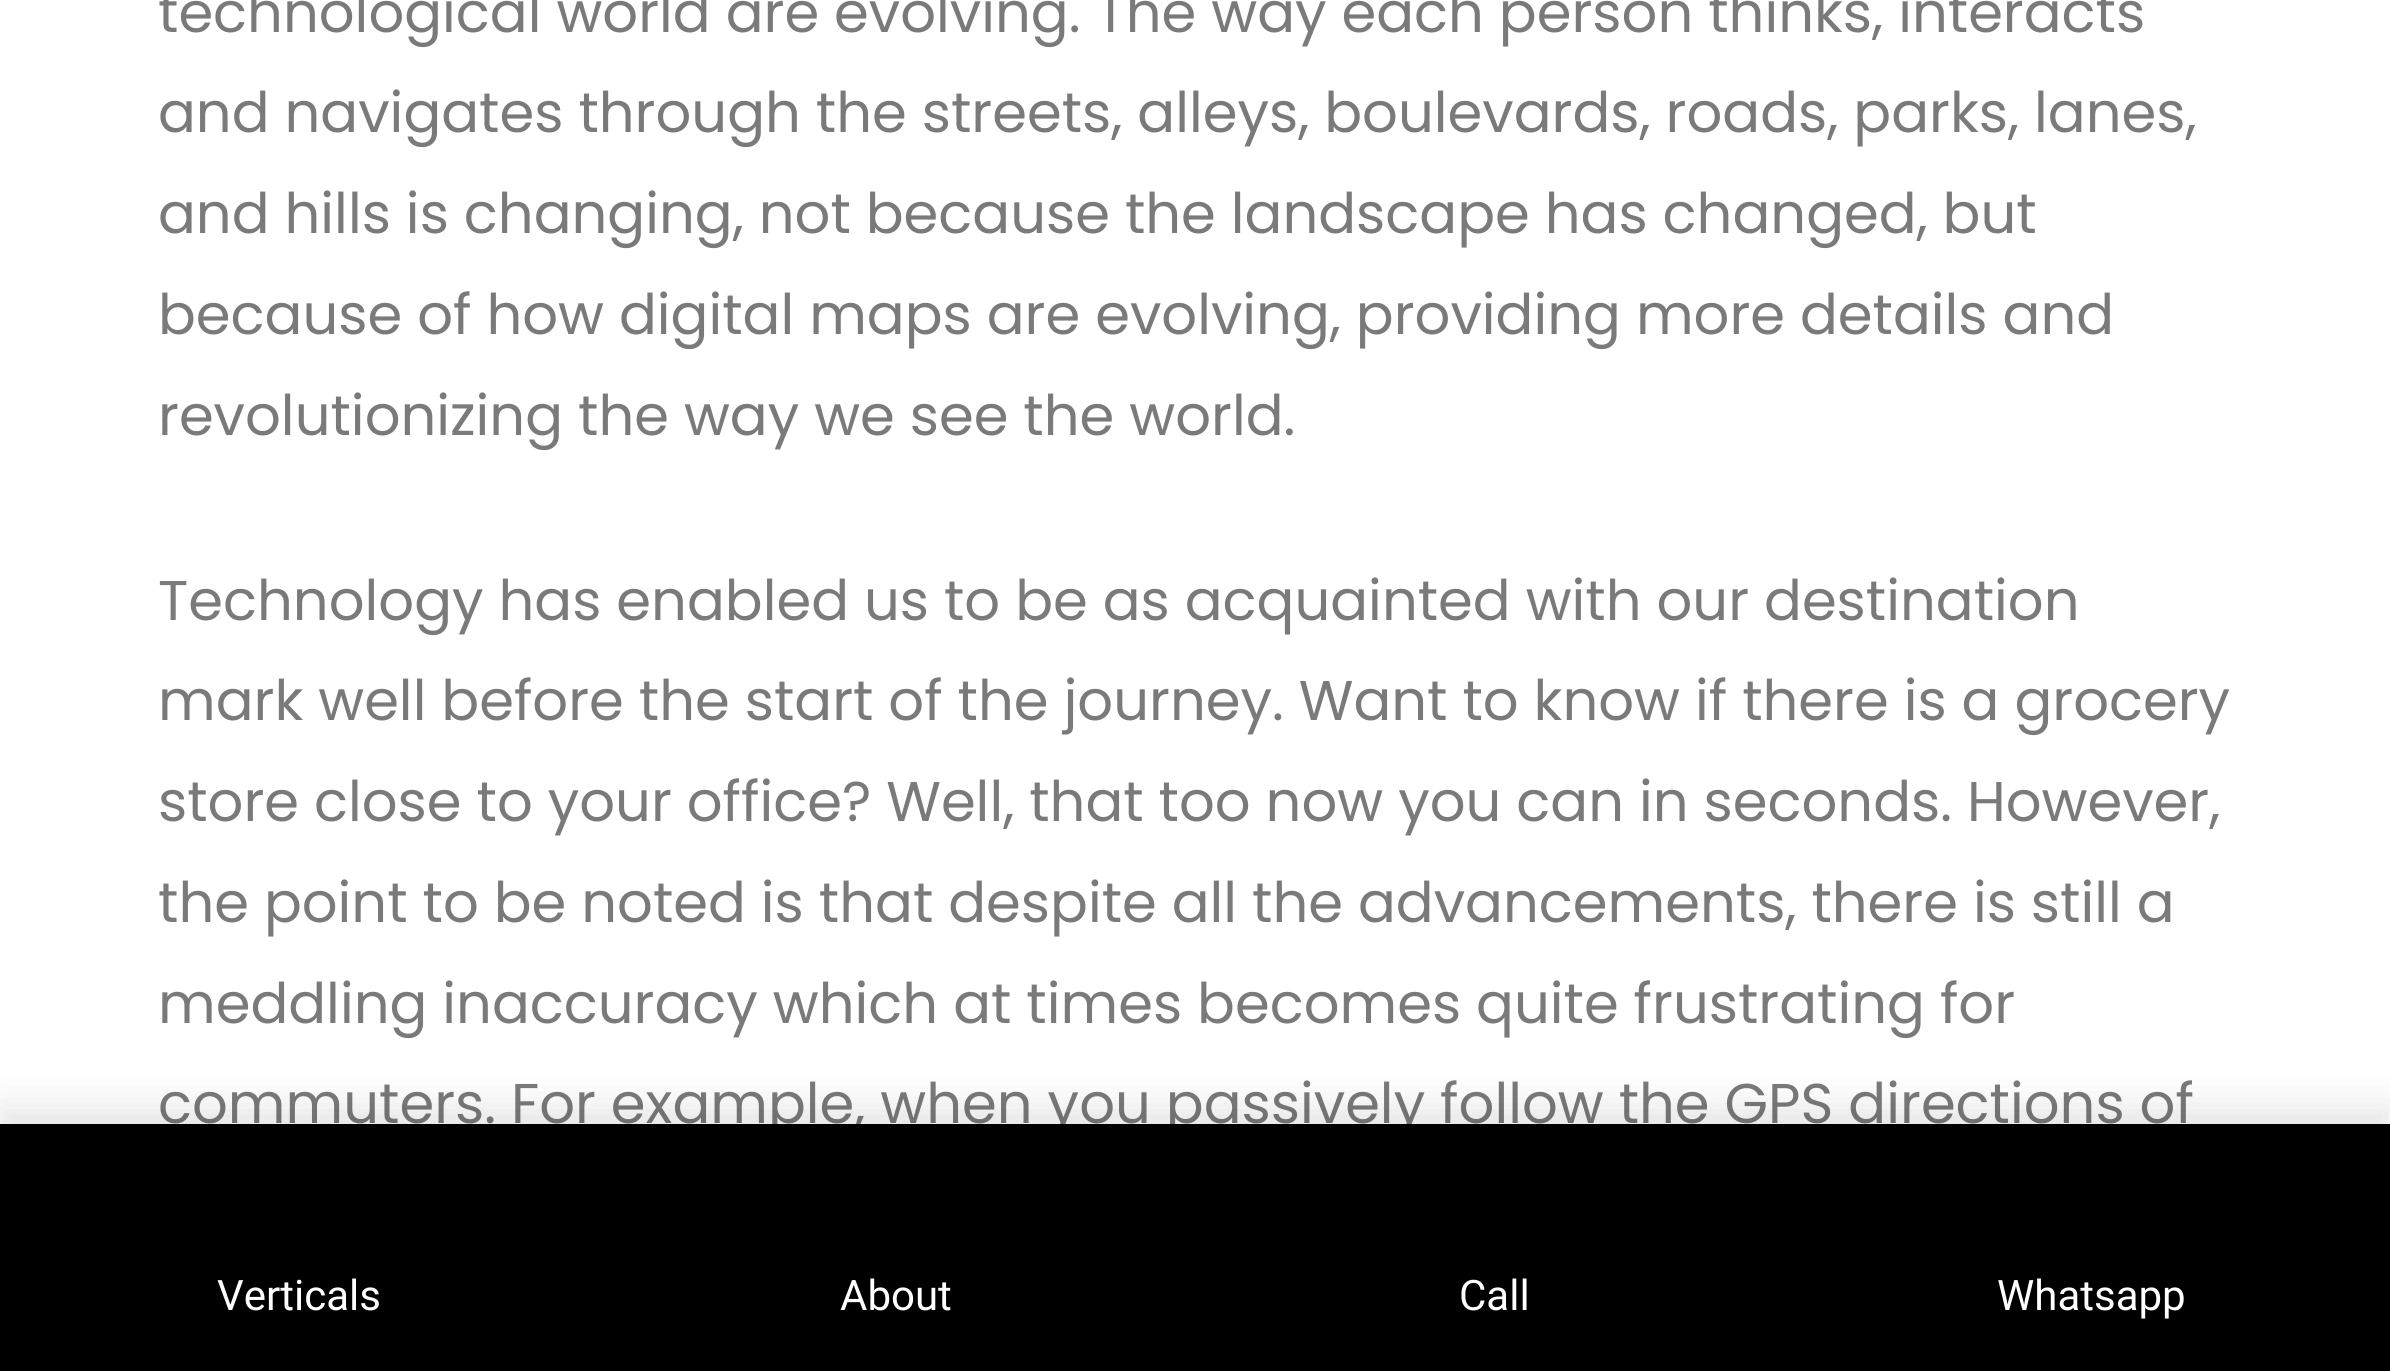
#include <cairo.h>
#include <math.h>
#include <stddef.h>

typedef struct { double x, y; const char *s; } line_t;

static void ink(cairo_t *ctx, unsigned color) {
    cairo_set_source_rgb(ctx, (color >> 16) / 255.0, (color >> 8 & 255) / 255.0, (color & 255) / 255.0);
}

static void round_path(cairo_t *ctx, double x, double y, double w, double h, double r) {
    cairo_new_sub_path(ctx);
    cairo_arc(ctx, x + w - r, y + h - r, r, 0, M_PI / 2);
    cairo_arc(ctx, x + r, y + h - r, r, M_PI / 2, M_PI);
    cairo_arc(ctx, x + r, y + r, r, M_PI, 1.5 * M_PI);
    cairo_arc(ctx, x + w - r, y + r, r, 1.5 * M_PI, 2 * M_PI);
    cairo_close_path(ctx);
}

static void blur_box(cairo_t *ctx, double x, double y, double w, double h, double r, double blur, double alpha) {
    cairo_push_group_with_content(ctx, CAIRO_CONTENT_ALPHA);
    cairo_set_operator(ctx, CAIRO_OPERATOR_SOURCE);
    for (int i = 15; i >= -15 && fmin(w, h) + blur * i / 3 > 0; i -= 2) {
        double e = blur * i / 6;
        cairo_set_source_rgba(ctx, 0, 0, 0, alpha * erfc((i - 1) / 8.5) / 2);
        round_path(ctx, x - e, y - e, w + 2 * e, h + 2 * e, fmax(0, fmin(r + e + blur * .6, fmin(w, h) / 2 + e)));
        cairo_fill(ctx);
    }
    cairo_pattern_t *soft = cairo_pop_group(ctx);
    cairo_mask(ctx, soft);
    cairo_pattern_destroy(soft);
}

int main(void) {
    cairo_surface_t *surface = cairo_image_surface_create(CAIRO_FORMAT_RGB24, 2390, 1371);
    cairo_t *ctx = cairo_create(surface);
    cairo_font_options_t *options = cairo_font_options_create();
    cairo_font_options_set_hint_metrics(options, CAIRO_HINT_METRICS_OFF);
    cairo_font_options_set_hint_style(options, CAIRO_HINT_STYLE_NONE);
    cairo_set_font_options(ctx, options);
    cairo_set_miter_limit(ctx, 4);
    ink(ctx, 0xFFFFFF);
    cairo_paint(ctx);
    cairo_select_font_face(ctx, "Poppins", CAIRO_FONT_SLANT_NORMAL, CAIRO_FONT_WEIGHT_NORMAL);
    cairo_set_font_size(ctx, 56);
    ink(ctx, 0x7A7A7A);
    {
        static const line_t items[] = {
            {158, 32, "technological world are evolving. The way each person thinks, interacts"},
            {158, 132, "and navigates through the streets, alleys, boulevards, roads, parks, lanes,"},
            {158, 233, "and hills is changing, not because the landscape has changed, but"},
            {158, 334, "because of how digital maps are evolving, providing more details and"},
            {158, 435, "revolutionizing the way we see the world."},
            {158, 620, "Technology has enabled us to be as acquainted with our destination"},
            {158, 720, "mark well before the start of the journey. Want to know if there is a grocery"},
            {158, 821, "store close to your office? Well, that too now you can in seconds. However,"},
            {158, 922, "the point to be noted is that despite all the advancements, there is still a"},
            {158, 1023, "meddling inaccuracy which at times becomes quite frustrating for"},
            {158, 1123, "commuters. For example, when you passively follow the GPS directions of"},
        };
        for (size_t i = 0; i < sizeof items / sizeof *items; i++) {
            cairo_move_to(ctx, items[i].x, items[i].y);
            cairo_show_text(ctx, items[i].s);
        }
    }
    ink(ctx, 0x000000);
    blur_box(ctx, 0, 1106, 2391, 249, 0, 17.5, 0.1);
    ink(ctx, 0x000000);
    cairo_rectangle(ctx, 0, 1124, 2390, 247);
    cairo_fill(ctx);
    cairo_select_font_face(ctx, "Roboto", CAIRO_FONT_SLANT_NORMAL, CAIRO_FONT_WEIGHT_NORMAL);
    cairo_set_font_size(ctx, 42);
    ink(ctx, 0xFFFFFF);
    {
        static const line_t items[] = {
            {217, 1310, "Verticals"},
            {840, 1310, "About"},
            {1459, 1310, "Call"},
            {1997, 1310, "Whatsapp"},
        };
        for (size_t i = 0; i < sizeof items / sizeof *items; i++) {
            cairo_move_to(ctx, items[i].x, items[i].y);
            cairo_show_text(ctx, items[i].s);
        }
    }
    cairo_surface_write_to_png(surface, "image.png");
    cairo_font_options_destroy(options);
    cairo_destroy(ctx);
    cairo_surface_destroy(surface);
    return 0;
}
